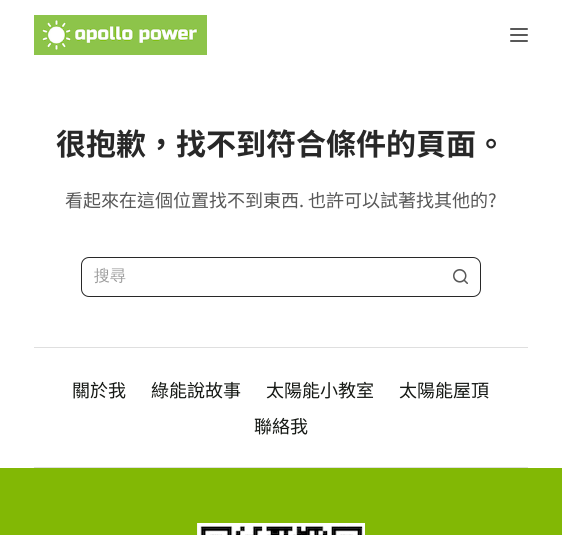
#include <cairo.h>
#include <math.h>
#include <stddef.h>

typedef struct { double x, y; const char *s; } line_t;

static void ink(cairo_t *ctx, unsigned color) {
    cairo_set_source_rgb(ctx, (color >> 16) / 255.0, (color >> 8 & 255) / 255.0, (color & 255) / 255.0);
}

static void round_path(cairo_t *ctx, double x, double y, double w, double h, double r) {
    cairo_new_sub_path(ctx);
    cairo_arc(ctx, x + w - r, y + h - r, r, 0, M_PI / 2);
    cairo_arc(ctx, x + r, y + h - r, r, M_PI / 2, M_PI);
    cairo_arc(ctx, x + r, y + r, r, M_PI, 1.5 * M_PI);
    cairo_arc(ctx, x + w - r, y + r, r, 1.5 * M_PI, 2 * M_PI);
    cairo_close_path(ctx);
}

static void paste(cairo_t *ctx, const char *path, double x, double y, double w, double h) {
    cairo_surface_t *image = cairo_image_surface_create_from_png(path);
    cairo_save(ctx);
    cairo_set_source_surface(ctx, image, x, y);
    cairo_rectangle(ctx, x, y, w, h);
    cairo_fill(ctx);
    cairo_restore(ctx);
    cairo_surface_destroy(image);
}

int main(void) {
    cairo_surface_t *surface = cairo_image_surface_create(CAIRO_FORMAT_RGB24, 562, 535);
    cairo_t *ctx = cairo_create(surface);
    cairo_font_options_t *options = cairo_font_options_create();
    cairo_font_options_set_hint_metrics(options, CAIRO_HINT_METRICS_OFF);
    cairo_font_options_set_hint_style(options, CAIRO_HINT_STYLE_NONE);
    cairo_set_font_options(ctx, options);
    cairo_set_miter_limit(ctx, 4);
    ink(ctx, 0xFFFFFF);
    cairo_paint(ctx);
    paste(ctx, "media/1.png", 34, 15, 173, 40);
    ink(ctx, 0x585858);
    round_path(ctx, 510, 28, 18, 2, 1);
    cairo_fill(ctx);
    round_path(ctx, 510, 34, 18, 2, 1);
    cairo_fill(ctx);
    round_path(ctx, 510, 40, 18, 2, 1);
    cairo_fill(ctx);
    cairo_select_font_face(ctx, "Noto Sans TC", CAIRO_FONT_SLANT_NORMAL, CAIRO_FONT_WEIGHT_BOLD);
    cairo_set_font_size(ctx, 30);
    ink(ctx, 0x282828);
    cairo_move_to(ctx, 56, 155);
    cairo_show_text(ctx, "很抱歉，找不到符合條件的頁面。");
    cairo_select_font_face(ctx, "Noto Sans TC", CAIRO_FONT_SLANT_NORMAL, CAIRO_FONT_WEIGHT_NORMAL);
    cairo_set_font_size(ctx, 18);
    ink(ctx, 0x585858);
    cairo_move_to(ctx, 65, 207);
    cairo_show_text(ctx, "看起來在這個位置找不到東西. 也許可以試著找其他的?");
    round_path(ctx, 81.5, 257.5, 399, 39, 7.5);
    ink(ctx, 0x282828);
    cairo_set_line_width(ctx, 1);
    cairo_stroke(ctx);
    cairo_select_font_face(ctx, "WenQuanYi Zen Hei Medium", CAIRO_FONT_SLANT_NORMAL, CAIRO_FONT_WEIGHT_NORMAL);
    cairo_set_font_size(ctx, 16);
    ink(ctx, 0x9B9B9B);
    cairo_move_to(ctx, 94, 281);
    cairo_show_text(ctx, "搜尋");
    paste(ctx, "media/2.png", 453, 269, 15, 15);
    ink(ctx, 0xDFDFDF);
    cairo_rectangle(ctx, 34, 347, 494, 1);
    cairo_fill(ctx);
    cairo_rectangle(ctx, 34, 467, 494, 1);
    cairo_fill(ctx);
    cairo_select_font_face(ctx, "Noto Sans TC", CAIRO_FONT_SLANT_NORMAL, CAIRO_FONT_WEIGHT_NORMAL);
    cairo_set_font_size(ctx, 18);
    ink(ctx, 0x161915);
    {
        static const line_t items[] = {
            {72, 397, "關於我"},
            {151, 397, "綠能說故事"},
            {266, 397, "太陽能小教室"},
            {399, 397, "太陽能屋頂"},
            {254, 433, "聯絡我"},
        };
        for (size_t i = 0; i < sizeof items / sizeof *items; i++) {
            cairo_move_to(ctx, items[i].x, items[i].y);
            cairo_show_text(ctx, items[i].s);
        }
    }
    ink(ctx, 0x82B805);
    cairo_rectangle(ctx, 0, 468, 562, 67);
    cairo_fill(ctx);
    paste(ctx, "media/3.png", 197, 523, 168, 12);
    cairo_surface_write_to_png(surface, "image.png");
    cairo_font_options_destroy(options);
    cairo_destroy(ctx);
    cairo_surface_destroy(surface);
    return 0;
}
